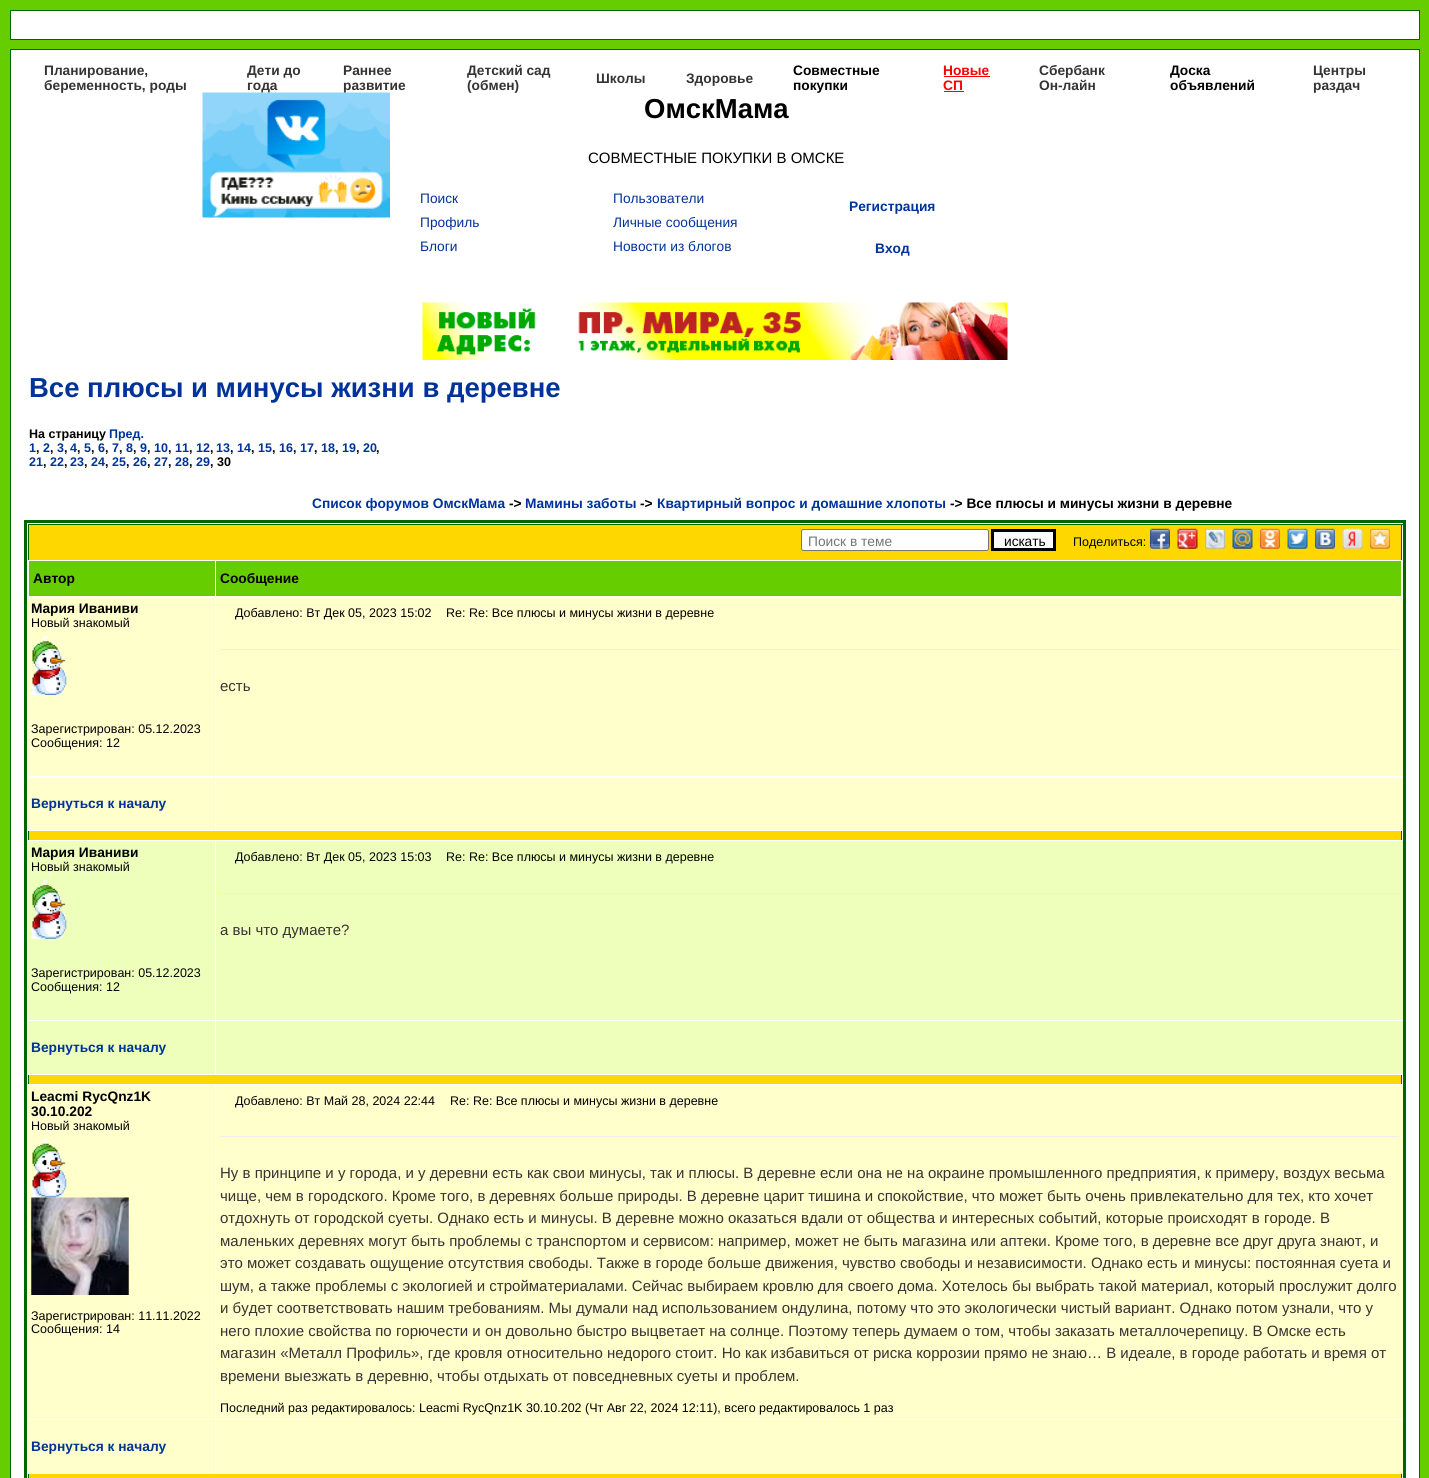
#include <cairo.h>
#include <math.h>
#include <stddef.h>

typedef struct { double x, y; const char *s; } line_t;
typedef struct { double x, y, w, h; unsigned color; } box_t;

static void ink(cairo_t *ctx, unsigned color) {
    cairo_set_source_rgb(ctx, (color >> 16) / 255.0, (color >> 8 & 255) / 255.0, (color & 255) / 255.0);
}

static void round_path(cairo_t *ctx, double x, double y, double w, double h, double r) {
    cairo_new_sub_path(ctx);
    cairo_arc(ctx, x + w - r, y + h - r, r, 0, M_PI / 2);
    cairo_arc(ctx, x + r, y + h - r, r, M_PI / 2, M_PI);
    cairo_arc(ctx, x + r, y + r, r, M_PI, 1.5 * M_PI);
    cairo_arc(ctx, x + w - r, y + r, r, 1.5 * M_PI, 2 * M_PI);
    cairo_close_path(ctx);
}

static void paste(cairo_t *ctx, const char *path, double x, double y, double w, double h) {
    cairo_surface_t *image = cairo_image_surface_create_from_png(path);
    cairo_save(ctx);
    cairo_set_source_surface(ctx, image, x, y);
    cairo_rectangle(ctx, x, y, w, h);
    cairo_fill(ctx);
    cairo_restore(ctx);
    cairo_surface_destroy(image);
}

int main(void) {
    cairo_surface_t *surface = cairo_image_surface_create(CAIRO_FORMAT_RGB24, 1429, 1478);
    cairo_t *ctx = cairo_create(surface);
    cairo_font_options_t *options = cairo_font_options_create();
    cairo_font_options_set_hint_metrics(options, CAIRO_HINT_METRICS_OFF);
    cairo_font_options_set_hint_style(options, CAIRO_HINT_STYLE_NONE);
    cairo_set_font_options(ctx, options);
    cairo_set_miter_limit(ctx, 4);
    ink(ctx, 0x66CD00);
    cairo_paint(ctx);
    ink(ctx, 0xFFFFFF);
    cairo_rectangle(ctx, 10.5, 10.5, 1409, 29);
    cairo_fill_preserve(ctx);
    ink(ctx, 0x006600);
    cairo_set_line_width(ctx, 1);
    cairo_stroke(ctx);
    ink(ctx, 0xFFFFFF);
    cairo_rectangle(ctx, 10.5, 49.5, 1409, 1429);
    cairo_fill_preserve(ctx);
    ink(ctx, 0x006600);
    cairo_stroke(ctx);
    cairo_select_font_face(ctx, "Liberation Sans", CAIRO_FONT_SLANT_NORMAL, CAIRO_FONT_WEIGHT_BOLD);
    cairo_set_font_size(ctx, 13.75);
    ink(ctx, 0x363333);
    {
        static const line_t items[] = {
            {44, 75, "Планирование,"},
            {44, 90, "беременность, роды"},
            {247, 75, "Дети до"},
            {247, 90, "года"},
            {343, 75, "Раннее"},
            {343, 90, "развитие"},
            {467, 75, "Детский сад"},
            {467, 90, "(обмен)"},
            {596, 83, "Школы"},
            {686, 83, "Здоровье"},
        };
        for (size_t i = 0; i < sizeof items / sizeof *items; i++) {
            cairo_move_to(ctx, items[i].x, items[i].y);
            cairo_show_text(ctx, items[i].s);
        }
    }
    ink(ctx, 0x000000);
    cairo_move_to(ctx, 793, 75);
    cairo_show_text(ctx, "Совместные");
    cairo_move_to(ctx, 793, 90);
    cairo_show_text(ctx, "покупки");
    ink(ctx, 0xFF0000);
    cairo_move_to(ctx, 943, 75);
    cairo_show_text(ctx, "Новые");
    cairo_rectangle(ctx, 944, 76, 46, 1);
    cairo_fill(ctx);
    cairo_move_to(ctx, 943, 90);
    cairo_show_text(ctx, "СП");
    cairo_rectangle(ctx, 944, 91, 20, 1);
    cairo_fill(ctx);
    ink(ctx, 0x363333);
    cairo_move_to(ctx, 1039, 75);
    cairo_show_text(ctx, "Сбербанк");
    cairo_move_to(ctx, 1039, 90);
    cairo_show_text(ctx, "Он-лайн");
    ink(ctx, 0x000000);
    cairo_move_to(ctx, 1170, 75);
    cairo_show_text(ctx, "Доска");
    cairo_move_to(ctx, 1170, 90);
    cairo_show_text(ctx, "объявлений");
    ink(ctx, 0x363333);
    cairo_move_to(ctx, 1313, 75);
    cairo_show_text(ctx, "Центры");
    cairo_move_to(ctx, 1313, 90);
    cairo_show_text(ctx, "раздач");
    paste(ctx, "media/1.png", 202, 92, 188, 126);
    cairo_set_font_size(ctx, 27.5);
    ink(ctx, 0x000000);
    cairo_move_to(ctx, 644, 118);
    cairo_show_text(ctx, "ОмскМама");
    cairo_select_font_face(ctx, "Liberation Sans", CAIRO_FONT_SLANT_NORMAL, CAIRO_FONT_WEIGHT_NORMAL);
    cairo_set_font_size(ctx, 15);
    cairo_move_to(ctx, 588, 163);
    cairo_show_text(ctx, "СОВМЕСТНЫЕ ПОКУПКИ В ОМСКЕ");
    cairo_set_font_size(ctx, 13.75);
    ink(ctx, 0x003399);
    {
        static const line_t items[] = {
            {420, 203, "Поиск"},
            {613, 203, "Пользователи"},
            {420, 227, "Профиль"},
            {613, 227, "Личные сообщения"},
            {420, 251, "Блоги"},
            {613, 251, "Новости из блогов"},
        };
        for (size_t i = 0; i < sizeof items / sizeof *items; i++) {
            cairo_move_to(ctx, items[i].x, items[i].y);
            cairo_show_text(ctx, items[i].s);
        }
    }
    cairo_select_font_face(ctx, "Liberation Sans", CAIRO_FONT_SLANT_NORMAL, CAIRO_FONT_WEIGHT_BOLD);
    cairo_move_to(ctx, 849, 211);
    cairo_show_text(ctx, "Регистрация");
    cairo_move_to(ctx, 875, 253);
    cairo_show_text(ctx, "Вход");
    paste(ctx, "media/2.png", 422, 302, 586, 58);
    cairo_set_font_size(ctx, 27.5);
    cairo_move_to(ctx, 29, 397);
    cairo_show_text(ctx, "Все плюсы и минусы жизни в деревне");
    cairo_set_font_size(ctx, 12.5);
    ink(ctx, 0x000000);
    cairo_move_to(ctx, 29, 438);
    cairo_show_text(ctx, "На страницу");
    ink(ctx, 0x003399);
    cairo_move_to(ctx, 109, 438);
    cairo_show_text(ctx, "Пред.");
    cairo_move_to(ctx, 29, 452);
    cairo_show_text(ctx, "1");
    ink(ctx, 0x000000);
    cairo_move_to(ctx, 36, 452);
    cairo_show_text(ctx, ",");
    ink(ctx, 0x003399);
    cairo_move_to(ctx, 43, 452);
    cairo_show_text(ctx, "2");
    ink(ctx, 0x000000);
    cairo_move_to(ctx, 50, 452);
    cairo_show_text(ctx, ",");
    ink(ctx, 0x003399);
    cairo_move_to(ctx, 57, 452);
    cairo_show_text(ctx, "3");
    ink(ctx, 0x000000);
    cairo_move_to(ctx, 64, 452);
    cairo_show_text(ctx, ",");
    ink(ctx, 0x003399);
    cairo_move_to(ctx, 70, 452);
    cairo_show_text(ctx, "4");
    ink(ctx, 0x000000);
    cairo_move_to(ctx, 77, 452);
    cairo_show_text(ctx, ",");
    ink(ctx, 0x003399);
    cairo_move_to(ctx, 84, 452);
    cairo_show_text(ctx, "5");
    ink(ctx, 0x000000);
    cairo_move_to(ctx, 91, 452);
    cairo_show_text(ctx, ",");
    ink(ctx, 0x003399);
    cairo_move_to(ctx, 98, 452);
    cairo_show_text(ctx, "6");
    ink(ctx, 0x000000);
    cairo_move_to(ctx, 105, 452);
    cairo_show_text(ctx, ",");
    ink(ctx, 0x003399);
    cairo_move_to(ctx, 112, 452);
    cairo_show_text(ctx, "7");
    ink(ctx, 0x000000);
    cairo_move_to(ctx, 119, 452);
    cairo_show_text(ctx, ",");
    ink(ctx, 0x003399);
    cairo_move_to(ctx, 126, 452);
    cairo_show_text(ctx, "8");
    ink(ctx, 0x000000);
    cairo_move_to(ctx, 133, 452);
    cairo_show_text(ctx, ",");
    ink(ctx, 0x003399);
    cairo_move_to(ctx, 140, 452);
    cairo_show_text(ctx, "9");
    ink(ctx, 0x000000);
    cairo_move_to(ctx, 147, 452);
    cairo_show_text(ctx, ",");
    ink(ctx, 0x003399);
    cairo_move_to(ctx, 154, 452);
    cairo_show_text(ctx, "10");
    ink(ctx, 0x000000);
    cairo_move_to(ctx, 168, 452);
    cairo_show_text(ctx, ",");
    ink(ctx, 0x003399);
    cairo_move_to(ctx, 175, 452);
    cairo_show_text(ctx, "11");
    ink(ctx, 0x000000);
    cairo_move_to(ctx, 189, 452);
    cairo_show_text(ctx, ",");
    ink(ctx, 0x003399);
    cairo_move_to(ctx, 196, 452);
    cairo_show_text(ctx, "12");
    ink(ctx, 0x000000);
    cairo_move_to(ctx, 210, 452);
    cairo_show_text(ctx, ",");
    ink(ctx, 0x003399);
    cairo_move_to(ctx, 216, 452);
    cairo_show_text(ctx, "13");
    ink(ctx, 0x000000);
    cairo_move_to(ctx, 230, 452);
    cairo_show_text(ctx, ",");
    ink(ctx, 0x003399);
    cairo_move_to(ctx, 237, 452);
    cairo_show_text(ctx, "14");
    ink(ctx, 0x000000);
    cairo_move_to(ctx, 251, 452);
    cairo_show_text(ctx, ",");
    ink(ctx, 0x003399);
    cairo_move_to(ctx, 258, 452);
    cairo_show_text(ctx, "15");
    ink(ctx, 0x000000);
    cairo_move_to(ctx, 272, 452);
    cairo_show_text(ctx, ",");
    ink(ctx, 0x003399);
    cairo_move_to(ctx, 279, 452);
    cairo_show_text(ctx, "16");
    ink(ctx, 0x000000);
    cairo_move_to(ctx, 293, 452);
    cairo_show_text(ctx, ",");
    ink(ctx, 0x003399);
    cairo_move_to(ctx, 300, 452);
    cairo_show_text(ctx, "17");
    ink(ctx, 0x000000);
    cairo_move_to(ctx, 314, 452);
    cairo_show_text(ctx, ",");
    ink(ctx, 0x003399);
    cairo_move_to(ctx, 321, 452);
    cairo_show_text(ctx, "18");
    ink(ctx, 0x000000);
    cairo_move_to(ctx, 335, 452);
    cairo_show_text(ctx, ",");
    ink(ctx, 0x003399);
    cairo_move_to(ctx, 342, 452);
    cairo_show_text(ctx, "19");
    ink(ctx, 0x000000);
    cairo_move_to(ctx, 356, 452);
    cairo_show_text(ctx, ",");
    ink(ctx, 0x003399);
    cairo_move_to(ctx, 363, 452);
    cairo_show_text(ctx, "20");
    ink(ctx, 0x000000);
    cairo_move_to(ctx, 376, 452);
    cairo_show_text(ctx, ",");
    ink(ctx, 0x003399);
    cairo_move_to(ctx, 29, 466);
    cairo_show_text(ctx, "21");
    ink(ctx, 0x000000);
    cairo_move_to(ctx, 43, 466);
    cairo_show_text(ctx, ",");
    ink(ctx, 0x003399);
    cairo_move_to(ctx, 50, 466);
    cairo_show_text(ctx, "22");
    ink(ctx, 0x000000);
    cairo_move_to(ctx, 64, 466);
    cairo_show_text(ctx, ",");
    ink(ctx, 0x003399);
    cairo_move_to(ctx, 70, 466);
    cairo_show_text(ctx, "23");
    ink(ctx, 0x000000);
    cairo_move_to(ctx, 84, 466);
    cairo_show_text(ctx, ",");
    ink(ctx, 0x003399);
    cairo_move_to(ctx, 91, 466);
    cairo_show_text(ctx, "24");
    ink(ctx, 0x000000);
    cairo_move_to(ctx, 105, 466);
    cairo_show_text(ctx, ",");
    ink(ctx, 0x003399);
    cairo_move_to(ctx, 112, 466);
    cairo_show_text(ctx, "25");
    ink(ctx, 0x000000);
    cairo_move_to(ctx, 126, 466);
    cairo_show_text(ctx, ",");
    ink(ctx, 0x003399);
    cairo_move_to(ctx, 133, 466);
    cairo_show_text(ctx, "26");
    ink(ctx, 0x000000);
    cairo_move_to(ctx, 147, 466);
    cairo_show_text(ctx, ",");
    ink(ctx, 0x003399);
    cairo_move_to(ctx, 154, 466);
    cairo_show_text(ctx, "27");
    ink(ctx, 0x000000);
    cairo_move_to(ctx, 168, 466);
    cairo_show_text(ctx, ",");
    ink(ctx, 0x003399);
    cairo_move_to(ctx, 175, 466);
    cairo_show_text(ctx, "28");
    ink(ctx, 0x000000);
    cairo_move_to(ctx, 189, 466);
    cairo_show_text(ctx, ",");
    ink(ctx, 0x003399);
    cairo_move_to(ctx, 196, 466);
    cairo_show_text(ctx, "29");
    ink(ctx, 0x000000);
    cairo_move_to(ctx, 210, 466);
    cairo_show_text(ctx, ", 30");
    cairo_set_font_size(ctx, 13.75);
    ink(ctx, 0x003399);
    cairo_move_to(ctx, 312, 508);
    cairo_show_text(ctx, "Список форумов ОмскМама");
    ink(ctx, 0x000000);
    cairo_move_to(ctx, 509, 508);
    cairo_show_text(ctx, "->");
    ink(ctx, 0x003399);
    cairo_move_to(ctx, 525, 508);
    cairo_show_text(ctx, "Мамины заботы");
    ink(ctx, 0x000000);
    cairo_move_to(ctx, 640, 508);
    cairo_show_text(ctx, "->");
    ink(ctx, 0x003399);
    cairo_move_to(ctx, 657, 508);
    cairo_show_text(ctx, "Квартирный вопрос и домашние хлопоты");
    ink(ctx, 0x000000);
    cairo_move_to(ctx, 950, 508);
    cairo_show_text(ctx, "-> Все плюсы и минусы жизни в деревне");
    cairo_rectangle(ctx, 25.5, 521.5, 1379, 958);
    ink(ctx, 0x006600);
    cairo_set_line_width(ctx, 3);
    cairo_stroke(ctx);
    {
        static const box_t items[] = {
            {29, 525, 1372, 35, 0xFFD700},
            {28, 524, 1375, 1, 0x006600},
            {1401, 524, 1, 36, 0x006600},
            {28, 524, 1, 36, 0x006600},
        };
        for (size_t i = 0; i < sizeof items / sizeof *items; i++) {
            ink(ctx, items[i].color);
            cairo_rectangle(ctx, items[i].x, items[i].y, items[i].w, items[i].h);
            cairo_fill(ctx);
        }
    }
    ink(ctx, 0xFFFFFF);
    round_path(ctx, 801.5, 529.5, 187, 21, 2);
    cairo_fill_preserve(ctx);
    ink(ctx, 0x767676);
    cairo_set_line_width(ctx, 1);
    cairo_stroke(ctx);
    cairo_select_font_face(ctx, "Liberation Sans", CAIRO_FONT_SLANT_NORMAL, CAIRO_FONT_WEIGHT_NORMAL);
    ink(ctx, 0x757575);
    cairo_move_to(ctx, 808, 546);
    cairo_show_text(ctx, "Поиск в теме");
    ink(ctx, 0xFAFAFA);
    cairo_rectangle(ctx, 992.5, 530.5, 62, 19);
    cairo_fill_preserve(ctx);
    ink(ctx, 0x000000);
    cairo_set_line_width(ctx, 3);
    cairo_stroke(ctx);
    cairo_move_to(ctx, 1004, 546);
    cairo_show_text(ctx, "искать");
    cairo_set_font_size(ctx, 12.5);
    cairo_move_to(ctx, 1073, 546);
    cairo_show_text(ctx, "Поделиться:");
    paste(ctx, "media/3.png", 1150, 528, 20, 21);
    paste(ctx, "media/4.png", 1177, 528, 21, 21);
    paste(ctx, "media/5.png", 1205, 528, 20, 21);
    paste(ctx, "media/6.png", 1232, 528, 21, 21);
    paste(ctx, "media/7.png", 1260, 528, 20, 21);
    paste(ctx, "media/8.png", 1287, 528, 21, 21);
    paste(ctx, "media/9.png", 1315, 528, 20, 21);
    paste(ctx, "media/10.png", 1342, 528, 21, 21);
    paste(ctx, "media/11.png", 1370, 528, 20, 21);
    ink(ctx, 0x66CD00);
    cairo_rectangle(ctx, 29, 561, 186, 35);
    cairo_fill(ctx);
    cairo_select_font_face(ctx, "Liberation Sans", CAIRO_FONT_SLANT_NORMAL, CAIRO_FONT_WEIGHT_BOLD);
    cairo_set_font_size(ctx, 13.75);
    ink(ctx, 0x000000);
    cairo_move_to(ctx, 33, 583);
    cairo_show_text(ctx, "Автор");
    ink(ctx, 0x66CD00);
    cairo_rectangle(ctx, 216, 561, 1185, 35);
    cairo_fill(ctx);
    ink(ctx, 0x000000);
    cairo_move_to(ctx, 220, 583);
    cairo_show_text(ctx, "Сообщение");
    ink(ctx, 0xFFFFCC);
    cairo_rectangle(ctx, 28, 598, 187, 178);
    cairo_fill(ctx);
    ink(ctx, 0x000000);
    cairo_move_to(ctx, 31, 613);
    cairo_show_text(ctx, "Мария Иваниви");
    cairo_select_font_face(ctx, "Liberation Sans", CAIRO_FONT_SLANT_NORMAL, CAIRO_FONT_WEIGHT_NORMAL);
    cairo_set_font_size(ctx, 12.5);
    cairo_move_to(ctx, 31, 627);
    cairo_show_text(ctx, "Новый знакомый");
    paste(ctx, "media/12.png", 31, 630, 36, 65);
    cairo_move_to(ctx, 31, 733);
    cairo_show_text(ctx, "Зарегистрирован: 05.12.2023");
    cairo_move_to(ctx, 31, 747);
    cairo_show_text(ctx, "Сообщения: 12");
    ink(ctx, 0xFFFFCC);
    cairo_rectangle(ctx, 216, 598, 1187, 178);
    cairo_fill(ctx);
    ink(ctx, 0x000000);
    cairo_move_to(ctx, 235, 617);
    cairo_show_text(ctx, "Добавлено: Вт Дек 05, 2023 15:02");
    cairo_move_to(ctx, 446, 617);
    cairo_show_text(ctx, "Re: Re: Все плюсы и минусы жизни в деревне");
    ink(ctx, 0xEEEEEE);
    cairo_rectangle(ctx, 220, 649, 1179, 1);
    cairo_fill(ctx);
    cairo_set_font_size(ctx, 15);
    ink(ctx, 0x363333);
    cairo_move_to(ctx, 220, 691);
    cairo_show_text(ctx, "есть");
    ink(ctx, 0xFFFFCC);
    cairo_rectangle(ctx, 28, 778, 187, 52);
    cairo_fill(ctx);
    cairo_select_font_face(ctx, "Liberation Sans", CAIRO_FONT_SLANT_NORMAL, CAIRO_FONT_WEIGHT_BOLD);
    cairo_set_font_size(ctx, 13.75);
    ink(ctx, 0x003399);
    cairo_move_to(ctx, 31, 808);
    cairo_show_text(ctx, "Вернуться к началу");
    {
        static const box_t items[] = {
            {216, 778, 1187, 52, 0xFFFFCC},
            {29, 831, 1372, 9, 0xFFD700},
            {1401, 831, 1, 9, 0x006600},
            {28, 831, 1, 9, 0x006600},
            {28, 841, 187, 179, 0xEEFFBB},
        };
        for (size_t i = 0; i < sizeof items / sizeof *items; i++) {
            ink(ctx, items[i].color);
            cairo_rectangle(ctx, items[i].x, items[i].y, items[i].w, items[i].h);
            cairo_fill(ctx);
        }
    }
    ink(ctx, 0x000000);
    cairo_move_to(ctx, 31, 857);
    cairo_show_text(ctx, "Мария Иваниви");
    cairo_select_font_face(ctx, "Liberation Sans", CAIRO_FONT_SLANT_NORMAL, CAIRO_FONT_WEIGHT_NORMAL);
    cairo_set_font_size(ctx, 12.5);
    cairo_move_to(ctx, 31, 871);
    cairo_show_text(ctx, "Новый знакомый");
    paste(ctx, "media/13.png", 31, 873, 36, 66);
    cairo_move_to(ctx, 31, 977);
    cairo_show_text(ctx, "Зарегистрирован: 05.12.2023");
    cairo_move_to(ctx, 31, 991);
    cairo_show_text(ctx, "Сообщения: 12");
    ink(ctx, 0xEEFFBB);
    cairo_rectangle(ctx, 216, 841, 1187, 179);
    cairo_fill(ctx);
    ink(ctx, 0x000000);
    cairo_move_to(ctx, 235, 861);
    cairo_show_text(ctx, "Добавлено: Вт Дек 05, 2023 15:03");
    cairo_move_to(ctx, 446, 861);
    cairo_show_text(ctx, "Re: Re: Все плюсы и минусы жизни в деревне");
    ink(ctx, 0xEEEEEE);
    cairo_rectangle(ctx, 220, 893, 1179, 1);
    cairo_fill(ctx);
    cairo_set_font_size(ctx, 15);
    ink(ctx, 0x363333);
    cairo_move_to(ctx, 220, 935);
    cairo_show_text(ctx, "а вы что думаете?");
    ink(ctx, 0xEEFFBB);
    cairo_rectangle(ctx, 28, 1021, 187, 53);
    cairo_fill(ctx);
    cairo_select_font_face(ctx, "Liberation Sans", CAIRO_FONT_SLANT_NORMAL, CAIRO_FONT_WEIGHT_BOLD);
    cairo_set_font_size(ctx, 13.75);
    ink(ctx, 0x003399);
    cairo_move_to(ctx, 31, 1052);
    cairo_show_text(ctx, "Вернуться к началу");
    {
        static const box_t items[] = {
            {216, 1021, 1187, 53, 0xEEFFBB},
            {29, 1075, 1372, 9, 0xFFD700},
            {1401, 1075, 1, 9, 0x006600},
            {28, 1075, 1, 9, 0x006600},
            {28, 1085, 187, 334, 0xFFFFCC},
        };
        for (size_t i = 0; i < sizeof items / sizeof *items; i++) {
            ink(ctx, items[i].color);
            cairo_rectangle(ctx, items[i].x, items[i].y, items[i].w, items[i].h);
            cairo_fill(ctx);
        }
    }
    ink(ctx, 0x000000);
    cairo_move_to(ctx, 31, 1101);
    cairo_show_text(ctx, "Leacmi RycQnz1K");
    cairo_move_to(ctx, 31, 1116);
    cairo_show_text(ctx, "30.10.202");
    cairo_select_font_face(ctx, "Liberation Sans", CAIRO_FONT_SLANT_NORMAL, CAIRO_FONT_WEIGHT_NORMAL);
    cairo_set_font_size(ctx, 12.5);
    cairo_move_to(ctx, 31, 1130);
    cairo_show_text(ctx, "Новый знакомый");
    paste(ctx, "media/14.png", 31, 1132, 36, 66);
    paste(ctx, "media/15.png", 31, 1197, 98, 98);
    cairo_move_to(ctx, 31, 1320);
    cairo_show_text(ctx, "Зарегистрирован: 11.11.2022");
    cairo_move_to(ctx, 31, 1333);
    cairo_show_text(ctx, "Сообщения: 14");
    ink(ctx, 0xFFFFCC);
    cairo_rectangle(ctx, 216, 1085, 1187, 334);
    cairo_fill(ctx);
    ink(ctx, 0x000000);
    cairo_move_to(ctx, 235, 1105);
    cairo_show_text(ctx, "Добавлено: Вт Май 28, 2024 22:44");
    cairo_move_to(ctx, 450, 1105);
    cairo_show_text(ctx, "Re: Re: Все плюсы и минусы жизни в деревне");
    ink(ctx, 0xEEEEEE);
    cairo_rectangle(ctx, 220, 1136, 1179, 1);
    cairo_fill(ctx);
    cairo_set_font_size(ctx, 15);
    ink(ctx, 0x363333);
    {
        static const line_t items[] = {
            {220, 1178, "Ну в принципе и у города, и у деревни есть как свои минусы, так и плюсы. В деревне если она не на окраине промышленного предприятия, к примеру, воздух весьма"},
            {220, 1201, "чище, чем в городского. Кроме того, в деревнях больше природы. В деревне царит тишина и спокойствие, что может быть очень привлекательно для тех, кто хочет"},
            {220, 1223, "отдохнуть от городской суеты. Однако есть и минусы. В деревне можно оказаться вдали от общества и интересных событий, которые происходят в городе. В"},
            {220, 1246, "маленьких деревнях могут быть проблемы с транспортом и сервисом: например, может не быть магазина или аптеки. Кроме того, в деревне все друг друга знают, и"},
            {220, 1268, "это может создавать ощущение отсутствия свободы. Также в городе больше движения, чувство свободы и независимости. Однако есть и минусы: постоянная суета и"},
            {220, 1291, "шум, а также проблемы с экологией и стройматериалами. Сейчас выбираем кровлю для своего дома. Хотелось бы выбрать такой материал, который прослужит долго"},
            {220, 1313, "и будет соответствовать нашим требованиям. Мы думали над использованием ондулина, потому что это экологически чистый вариант. Однако потом узнали, что у"},
            {220, 1336, "него плохие свойства по горючести и он довольно быстро выцветает на солнце. Поэтому теперь думаем о том, чтобы заказать металлочерепицу. В Омске есть"},
            {220, 1358, "магазин «Металл Профиль», где кровля относительно недорого стоит. Но как избавиться от риска коррозии прямо не знаю… В идеале, в городе работать и время от"},
            {220, 1381, "времени выезжать в деревню, чтобы отдыхать от повседневных суеты и проблем."},
        };
        for (size_t i = 0; i < sizeof items / sizeof *items; i++) {
            cairo_move_to(ctx, items[i].x, items[i].y);
            cairo_show_text(ctx, items[i].s);
        }
    }
    cairo_set_font_size(ctx, 12.5);
    ink(ctx, 0x000000);
    cairo_move_to(ctx, 220, 1412);
    cairo_show_text(ctx, "Последний раз редактировалось: Leacmi RycQnz1K 30.10.202 (Чт Авг 22, 2024 12:11), всего редактировалось 1 раз");
    ink(ctx, 0xFFFFCC);
    cairo_rectangle(ctx, 28, 1420, 187, 53);
    cairo_fill(ctx);
    cairo_select_font_face(ctx, "Liberation Sans", CAIRO_FONT_SLANT_NORMAL, CAIRO_FONT_WEIGHT_BOLD);
    cairo_set_font_size(ctx, 13.75);
    ink(ctx, 0x003399);
    cairo_move_to(ctx, 31, 1451);
    cairo_show_text(ctx, "Вернуться к началу");
    {
        static const box_t items[] = {
            {216, 1420, 1187, 53, 0xFFFFCC},
            {29, 1474, 1372, 4, 0xFFD700},
            {1401, 1474, 1, 4, 0x006600},
            {28, 1474, 1, 4, 0x006600},
        };
        for (size_t i = 0; i < sizeof items / sizeof *items; i++) {
            ink(ctx, items[i].color);
            cairo_rectangle(ctx, items[i].x, items[i].y, items[i].w, items[i].h);
            cairo_fill(ctx);
        }
    }
    cairo_surface_write_to_png(surface, "image.png");
    cairo_font_options_destroy(options);
    cairo_destroy(ctx);
    cairo_surface_destroy(surface);
    return 0;
}
